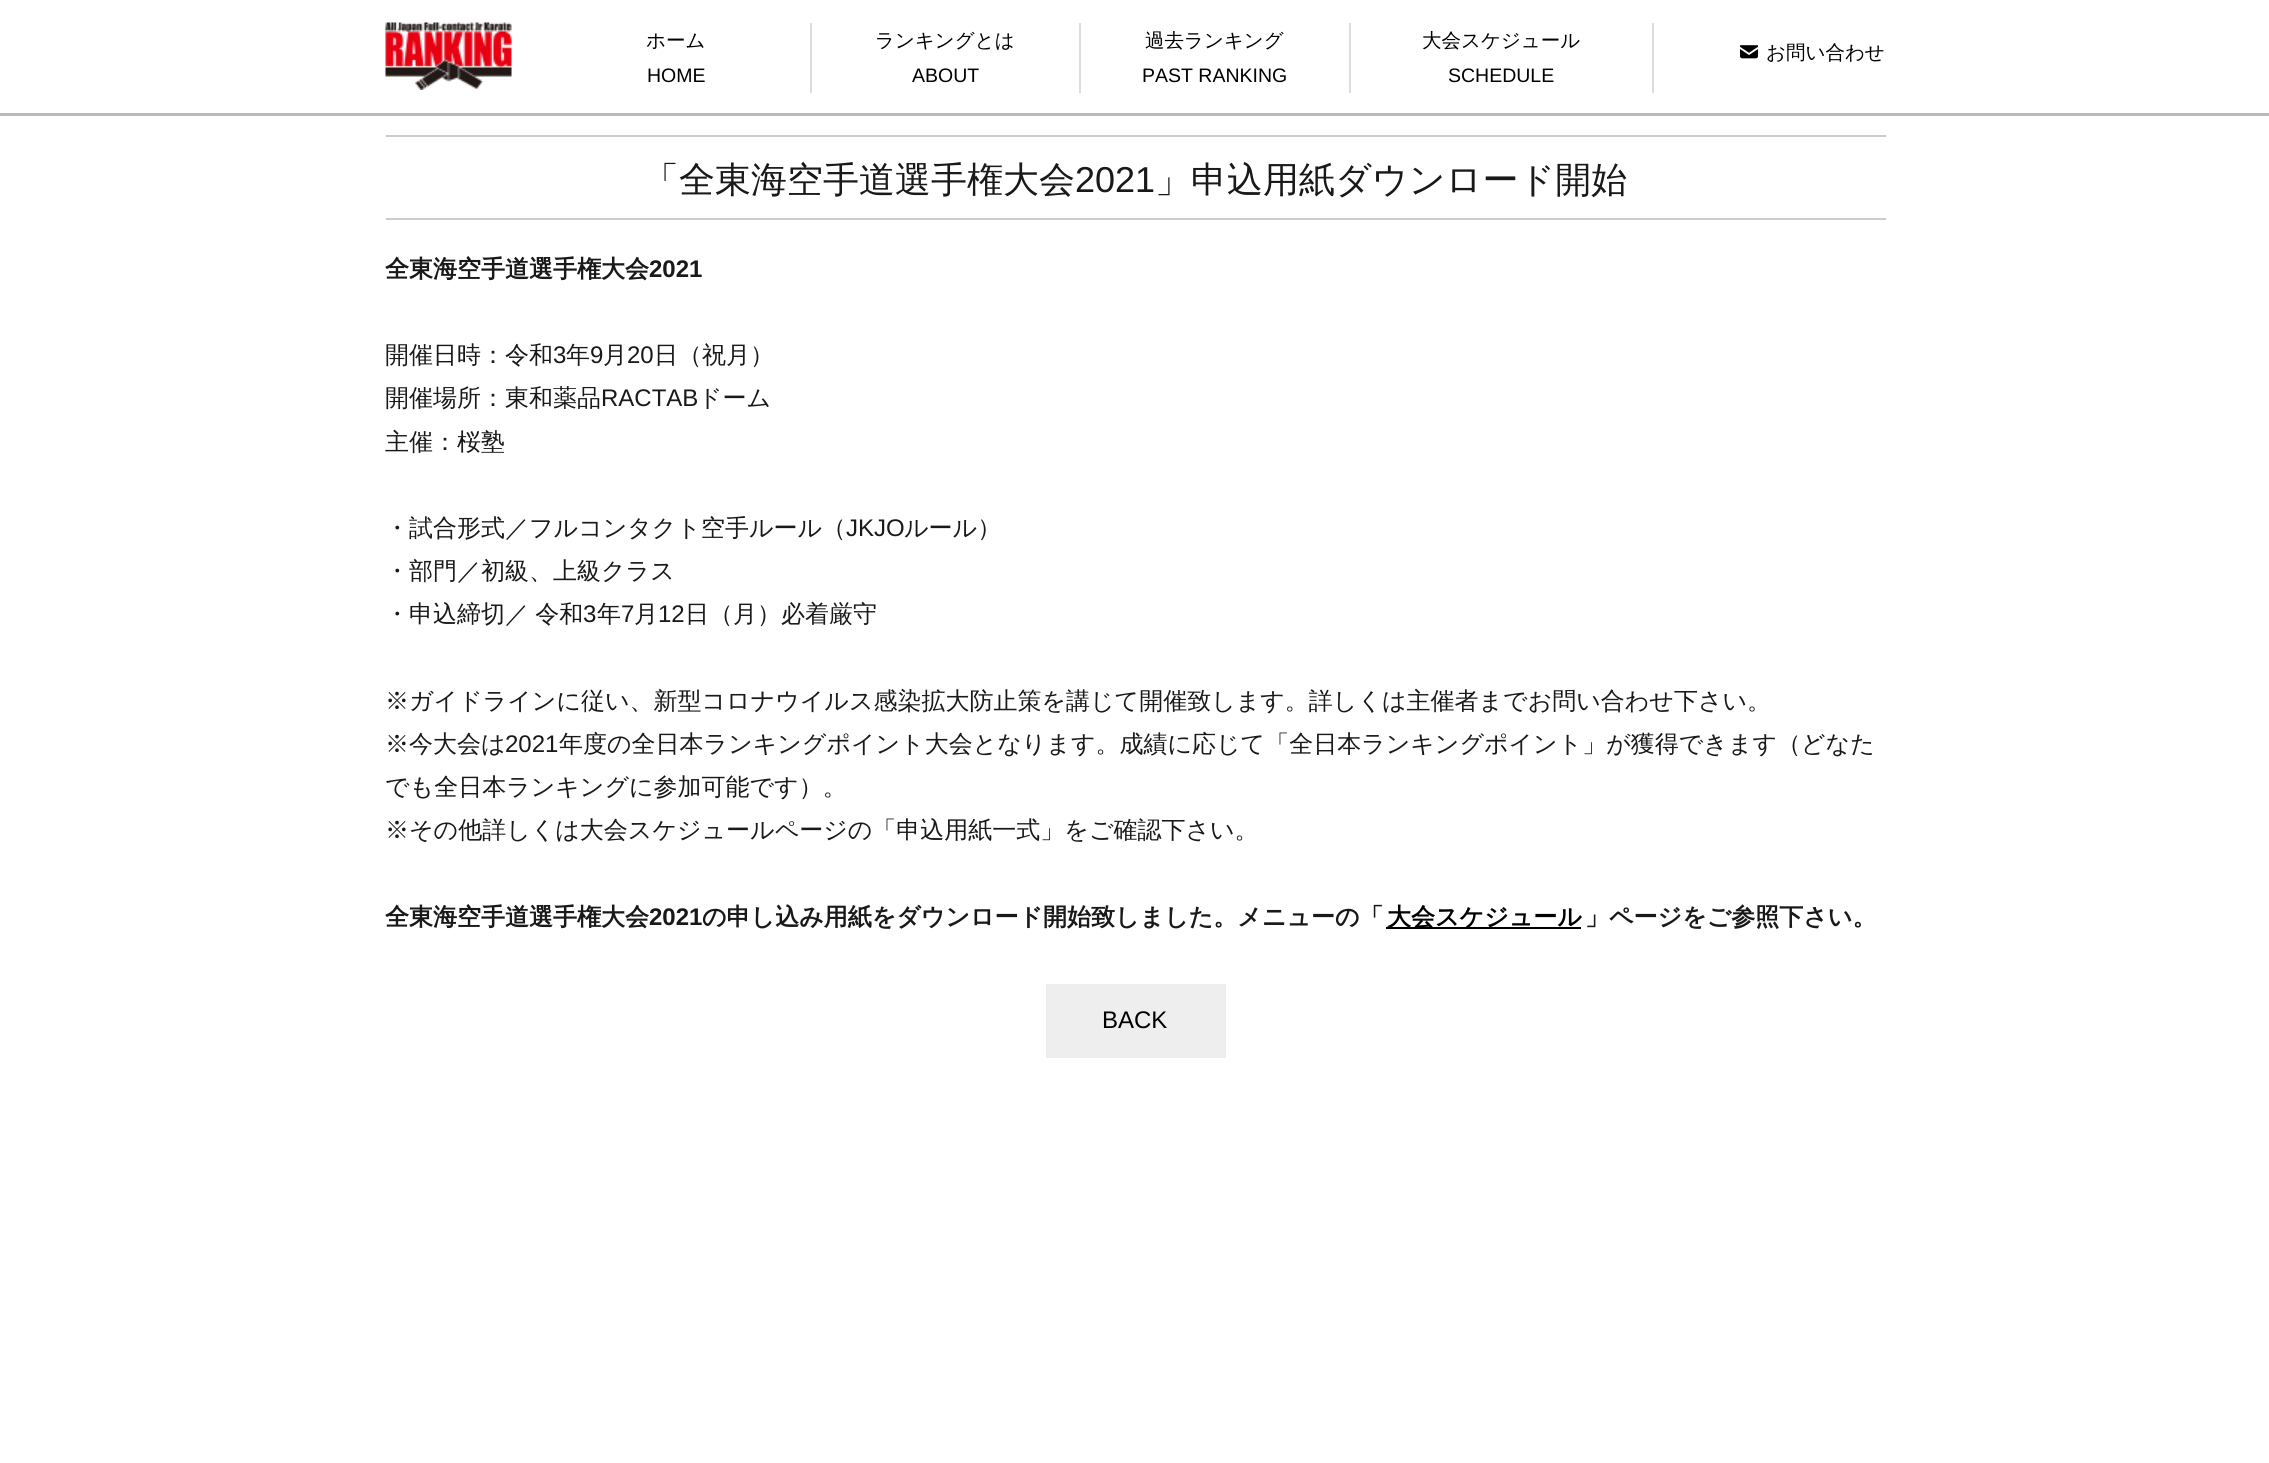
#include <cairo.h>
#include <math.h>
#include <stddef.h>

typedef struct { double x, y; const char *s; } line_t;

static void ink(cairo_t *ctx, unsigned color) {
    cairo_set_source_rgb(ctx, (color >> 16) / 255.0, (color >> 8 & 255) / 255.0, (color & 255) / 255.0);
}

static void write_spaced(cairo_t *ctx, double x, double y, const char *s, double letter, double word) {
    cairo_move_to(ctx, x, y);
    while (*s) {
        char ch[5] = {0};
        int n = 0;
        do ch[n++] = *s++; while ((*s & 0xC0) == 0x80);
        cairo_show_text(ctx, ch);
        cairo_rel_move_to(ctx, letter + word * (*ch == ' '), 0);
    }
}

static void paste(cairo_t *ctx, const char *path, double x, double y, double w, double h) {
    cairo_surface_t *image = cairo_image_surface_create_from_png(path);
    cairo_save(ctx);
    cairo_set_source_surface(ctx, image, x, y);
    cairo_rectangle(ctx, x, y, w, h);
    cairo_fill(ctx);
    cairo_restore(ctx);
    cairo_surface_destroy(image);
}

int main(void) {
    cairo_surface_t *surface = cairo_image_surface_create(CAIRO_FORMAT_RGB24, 2269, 1463);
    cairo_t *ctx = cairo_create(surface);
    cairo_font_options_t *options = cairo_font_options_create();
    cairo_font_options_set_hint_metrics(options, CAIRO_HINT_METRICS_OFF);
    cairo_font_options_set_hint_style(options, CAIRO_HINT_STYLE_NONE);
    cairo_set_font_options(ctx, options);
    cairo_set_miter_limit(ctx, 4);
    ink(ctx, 0xFFFFFF);
    cairo_paint(ctx);
    ink(ctx, 0xDDDDDD);
    cairo_rectangle(ctx, 810, 23, 2, 70);
    cairo_fill(ctx);
    cairo_select_font_face(ctx, "WenQuanYi Zen Hei Medium", CAIRO_FONT_SLANT_NORMAL, CAIRO_FONT_WEIGHT_NORMAL);
    cairo_set_font_size(ctx, 19.5);
    ink(ctx, 0x000000);
    cairo_move_to(ctx, 646, 47);
    cairo_show_text(ctx, "ホーム");
    cairo_select_font_face(ctx, "Liberation Sans", CAIRO_FONT_SLANT_NORMAL, CAIRO_FONT_WEIGHT_NORMAL);
    cairo_move_to(ctx, 647, 82);
    cairo_show_text(ctx, "HOME");
    ink(ctx, 0xDDDDDD);
    cairo_rectangle(ctx, 1079, 23, 2, 70);
    cairo_fill(ctx);
    cairo_select_font_face(ctx, "WenQuanYi Zen Hei Medium", CAIRO_FONT_SLANT_NORMAL, CAIRO_FONT_WEIGHT_NORMAL);
    ink(ctx, 0x000000);
    cairo_move_to(ctx, 875, 47);
    cairo_show_text(ctx, "ランキングとは");
    cairo_select_font_face(ctx, "Liberation Sans", CAIRO_FONT_SLANT_NORMAL, CAIRO_FONT_WEIGHT_NORMAL);
    cairo_move_to(ctx, 912, 82);
    cairo_show_text(ctx, "ABOUT");
    ink(ctx, 0xDDDDDD);
    cairo_rectangle(ctx, 1349, 23, 2, 70);
    cairo_fill(ctx);
    cairo_select_font_face(ctx, "WenQuanYi Zen Hei Medium", CAIRO_FONT_SLANT_NORMAL, CAIRO_FONT_WEIGHT_NORMAL);
    ink(ctx, 0x000000);
    cairo_move_to(ctx, 1145, 47);
    cairo_show_text(ctx, "過去ランキング");
    cairo_select_font_face(ctx, "Liberation Sans", CAIRO_FONT_SLANT_NORMAL, CAIRO_FONT_WEIGHT_NORMAL);
    cairo_move_to(ctx, 1142, 82);
    cairo_show_text(ctx, "PAST RANKING");
    ink(ctx, 0xDDDDDD);
    cairo_rectangle(ctx, 1652, 23, 2, 70);
    cairo_fill(ctx);
    cairo_select_font_face(ctx, "WenQuanYi Zen Hei Medium", CAIRO_FONT_SLANT_NORMAL, CAIRO_FONT_WEIGHT_NORMAL);
    ink(ctx, 0x000000);
    cairo_move_to(ctx, 1422, 47);
    cairo_show_text(ctx, "大会スケジュール");
    cairo_select_font_face(ctx, "Liberation Sans", CAIRO_FONT_SLANT_NORMAL, CAIRO_FONT_WEIGHT_NORMAL);
    cairo_move_to(ctx, 1448, 82);
    cairo_show_text(ctx, "SCHEDULE");
    ink(ctx, 0xBDB9B8);
    cairo_rectangle(ctx, 0, 113, 2269, 3);
    cairo_fill(ctx);
    paste(ctx, "media/1.png", 385, 22, 127, 68);
    paste(ctx, "media/2.png", 1740, 45, 18, 14);
    cairo_select_font_face(ctx, "WenQuanYi Zen Hei Medium", CAIRO_FONT_SLANT_NORMAL, CAIRO_FONT_WEIGHT_NORMAL);
    ink(ctx, 0x000000);
    cairo_move_to(ctx, 1766, 59);
    cairo_show_text(ctx, "お問い合わせ");
    ink(ctx, 0xCCCCCC);
    cairo_rectangle(ctx, 386, 135, 1500, 2);
    cairo_fill(ctx);
    cairo_rectangle(ctx, 386, 218, 1500, 2);
    cairo_fill(ctx);
    cairo_set_font_size(ctx, 36);
    ink(ctx, 0x191919);
    cairo_move_to(ctx, 643, 192);
    cairo_show_text(ctx, "「全東海空手道選手権大会");
    cairo_select_font_face(ctx, "Liberation Sans", CAIRO_FONT_SLANT_NORMAL, CAIRO_FONT_WEIGHT_NORMAL);
    cairo_move_to(ctx, 1075, 192);
    cairo_show_text(ctx, "2021");
    cairo_select_font_face(ctx, "WenQuanYi Zen Hei Medium", CAIRO_FONT_SLANT_NORMAL, CAIRO_FONT_WEIGHT_NORMAL);
    cairo_move_to(ctx, 1155, 192);
    cairo_show_text(ctx, "」申込用紙ダウンロード開始");
    cairo_select_font_face(ctx, "WenQuanYi Zen Hei", CAIRO_FONT_SLANT_NORMAL, CAIRO_FONT_WEIGHT_BOLD);
    cairo_set_font_size(ctx, 24);
    cairo_move_to(ctx, 385, 277);
    cairo_show_text(ctx, "全東海空手道選手権大会");
    cairo_select_font_face(ctx, "Liberation Sans", CAIRO_FONT_SLANT_NORMAL, CAIRO_FONT_WEIGHT_BOLD);
    cairo_move_to(ctx, 649, 277);
    cairo_show_text(ctx, "2021");
    cairo_select_font_face(ctx, "WenQuanYi Zen Hei Medium", CAIRO_FONT_SLANT_NORMAL, CAIRO_FONT_WEIGHT_NORMAL);
    cairo_move_to(ctx, 385, 363);
    cairo_show_text(ctx, "開催日時：令和");
    cairo_select_font_face(ctx, "Liberation Sans", CAIRO_FONT_SLANT_NORMAL, CAIRO_FONT_WEIGHT_NORMAL);
    cairo_move_to(ctx, 553, 363);
    cairo_show_text(ctx, "3");
    cairo_select_font_face(ctx, "WenQuanYi Zen Hei Medium", CAIRO_FONT_SLANT_NORMAL, CAIRO_FONT_WEIGHT_NORMAL);
    cairo_move_to(ctx, 566, 363);
    cairo_show_text(ctx, "年");
    cairo_select_font_face(ctx, "Liberation Sans", CAIRO_FONT_SLANT_NORMAL, CAIRO_FONT_WEIGHT_NORMAL);
    cairo_move_to(ctx, 590, 363);
    cairo_show_text(ctx, "9");
    cairo_select_font_face(ctx, "WenQuanYi Zen Hei Medium", CAIRO_FONT_SLANT_NORMAL, CAIRO_FONT_WEIGHT_NORMAL);
    cairo_move_to(ctx, 603, 363);
    cairo_show_text(ctx, "月");
    cairo_select_font_face(ctx, "Liberation Sans", CAIRO_FONT_SLANT_NORMAL, CAIRO_FONT_WEIGHT_NORMAL);
    cairo_move_to(ctx, 627, 363);
    cairo_show_text(ctx, "20");
    cairo_select_font_face(ctx, "WenQuanYi Zen Hei Medium", CAIRO_FONT_SLANT_NORMAL, CAIRO_FONT_WEIGHT_NORMAL);
    cairo_move_to(ctx, 654, 363);
    cairo_show_text(ctx, "日（祝月）");
    cairo_move_to(ctx, 385, 406);
    cairo_show_text(ctx, "開催場所：東和薬品");
    cairo_select_font_face(ctx, "Liberation Sans", CAIRO_FONT_SLANT_NORMAL, CAIRO_FONT_WEIGHT_NORMAL);
    cairo_move_to(ctx, 601, 406);
    cairo_show_text(ctx, "RACTAB");
    cairo_select_font_face(ctx, "WenQuanYi Zen Hei Medium", CAIRO_FONT_SLANT_NORMAL, CAIRO_FONT_WEIGHT_NORMAL);
    {
        static const line_t items[] = {
            {698, 406, "ドーム"},
            {385, 450, "主催：桜塾"},
            {385, 536, "・試合形式／フルコンタクト空手ルール（"},
        };
        for (size_t i = 0; i < sizeof items / sizeof *items; i++) {
            cairo_move_to(ctx, items[i].x, items[i].y);
            cairo_show_text(ctx, items[i].s);
        }
    }
    cairo_select_font_face(ctx, "Liberation Sans", CAIRO_FONT_SLANT_NORMAL, CAIRO_FONT_WEIGHT_NORMAL);
    cairo_move_to(ctx, 846, 536);
    cairo_show_text(ctx, "JKJO");
    cairo_select_font_face(ctx, "WenQuanYi Zen Hei Medium", CAIRO_FONT_SLANT_NORMAL, CAIRO_FONT_WEIGHT_NORMAL);
    cairo_move_to(ctx, 904, 536);
    cairo_show_text(ctx, "ルール）");
    cairo_move_to(ctx, 385, 579);
    cairo_show_text(ctx, "・部門／初級、上級クラス");
    write_spaced(ctx, 385, 622, "・申込締切／ 令和", 0, -1);
    cairo_select_font_face(ctx, "Liberation Sans", CAIRO_FONT_SLANT_NORMAL, CAIRO_FONT_WEIGHT_NORMAL);
    cairo_move_to(ctx, 583, 622);
    cairo_show_text(ctx, "3");
    cairo_select_font_face(ctx, "WenQuanYi Zen Hei Medium", CAIRO_FONT_SLANT_NORMAL, CAIRO_FONT_WEIGHT_NORMAL);
    cairo_move_to(ctx, 597, 622);
    cairo_show_text(ctx, "年");
    cairo_select_font_face(ctx, "Liberation Sans", CAIRO_FONT_SLANT_NORMAL, CAIRO_FONT_WEIGHT_NORMAL);
    cairo_move_to(ctx, 621, 622);
    cairo_show_text(ctx, "7");
    cairo_select_font_face(ctx, "WenQuanYi Zen Hei Medium", CAIRO_FONT_SLANT_NORMAL, CAIRO_FONT_WEIGHT_NORMAL);
    cairo_move_to(ctx, 634, 622);
    cairo_show_text(ctx, "月");
    cairo_select_font_face(ctx, "Liberation Sans", CAIRO_FONT_SLANT_NORMAL, CAIRO_FONT_WEIGHT_NORMAL);
    cairo_move_to(ctx, 658, 622);
    cairo_show_text(ctx, "12");
    cairo_select_font_face(ctx, "WenQuanYi Zen Hei Medium", CAIRO_FONT_SLANT_NORMAL, CAIRO_FONT_WEIGHT_NORMAL);
    {
        static const line_t items[] = {
            {685, 622, "日（月）必着厳守"},
            {385, 709, "※ガイドラインに従い、新型コロナウイルス感染拡大防止策を講じて開催致します。詳しくは主催者までお問い合わせ下さい。"},
            {385, 752, "※今大会は"},
        };
        for (size_t i = 0; i < sizeof items / sizeof *items; i++) {
            cairo_move_to(ctx, items[i].x, items[i].y);
            cairo_show_text(ctx, items[i].s);
        }
    }
    cairo_select_font_face(ctx, "Liberation Sans", CAIRO_FONT_SLANT_NORMAL, CAIRO_FONT_WEIGHT_NORMAL);
    cairo_move_to(ctx, 505, 752);
    cairo_show_text(ctx, "2021");
    cairo_select_font_face(ctx, "WenQuanYi Zen Hei Medium", CAIRO_FONT_SLANT_NORMAL, CAIRO_FONT_WEIGHT_NORMAL);
    {
        static const line_t items[] = {
            {559, 752, "年度の全日本ランキングポイント大会となります。成績に応じて「全日本ランキングポイント」が獲得できます（どなた"},
            {385, 795, "でも全日本ランキングに参加可能です）。"},
            {385, 838, "※その他詳しくは大会スケジュールページの「申込用紙一式」をご確認下さい。"},
        };
        for (size_t i = 0; i < sizeof items / sizeof *items; i++) {
            cairo_move_to(ctx, items[i].x, items[i].y);
            cairo_show_text(ctx, items[i].s);
        }
    }
    cairo_select_font_face(ctx, "WenQuanYi Zen Hei", CAIRO_FONT_SLANT_NORMAL, CAIRO_FONT_WEIGHT_BOLD);
    cairo_move_to(ctx, 385, 925);
    cairo_show_text(ctx, "全東海空手道選手権大会");
    cairo_select_font_face(ctx, "Liberation Sans", CAIRO_FONT_SLANT_NORMAL, CAIRO_FONT_WEIGHT_BOLD);
    cairo_move_to(ctx, 649, 925);
    cairo_show_text(ctx, "2021");
    cairo_select_font_face(ctx, "WenQuanYi Zen Hei", CAIRO_FONT_SLANT_NORMAL, CAIRO_FONT_WEIGHT_BOLD);
    cairo_move_to(ctx, 702, 925);
    cairo_show_text(ctx, "の申し込み用紙をダウンロード開始致しました。メニューの「");
    ink(ctx, 0x000000);
    cairo_rectangle(ctx, 1386, 927, 195, 2);
    cairo_fill(ctx);
    cairo_move_to(ctx, 1387, 925);
    cairo_show_text(ctx, "大会スケジュール");
    ink(ctx, 0x191919);
    cairo_move_to(ctx, 1585, 925);
    cairo_show_text(ctx, "」ページをご参照下さい。");
    ink(ctx, 0xEEEEEE);
    cairo_rectangle(ctx, 1046, 984, 180, 74);
    cairo_fill(ctx);
    cairo_select_font_face(ctx, "Liberation Sans", CAIRO_FONT_SLANT_NORMAL, CAIRO_FONT_WEIGHT_NORMAL);
    ink(ctx, 0x000000);
    cairo_move_to(ctx, 1102, 1028);
    cairo_show_text(ctx, "BACK");
    cairo_surface_write_to_png(surface, "image.png");
    cairo_font_options_destroy(options);
    cairo_destroy(ctx);
    cairo_surface_destroy(surface);
    return 0;
}
